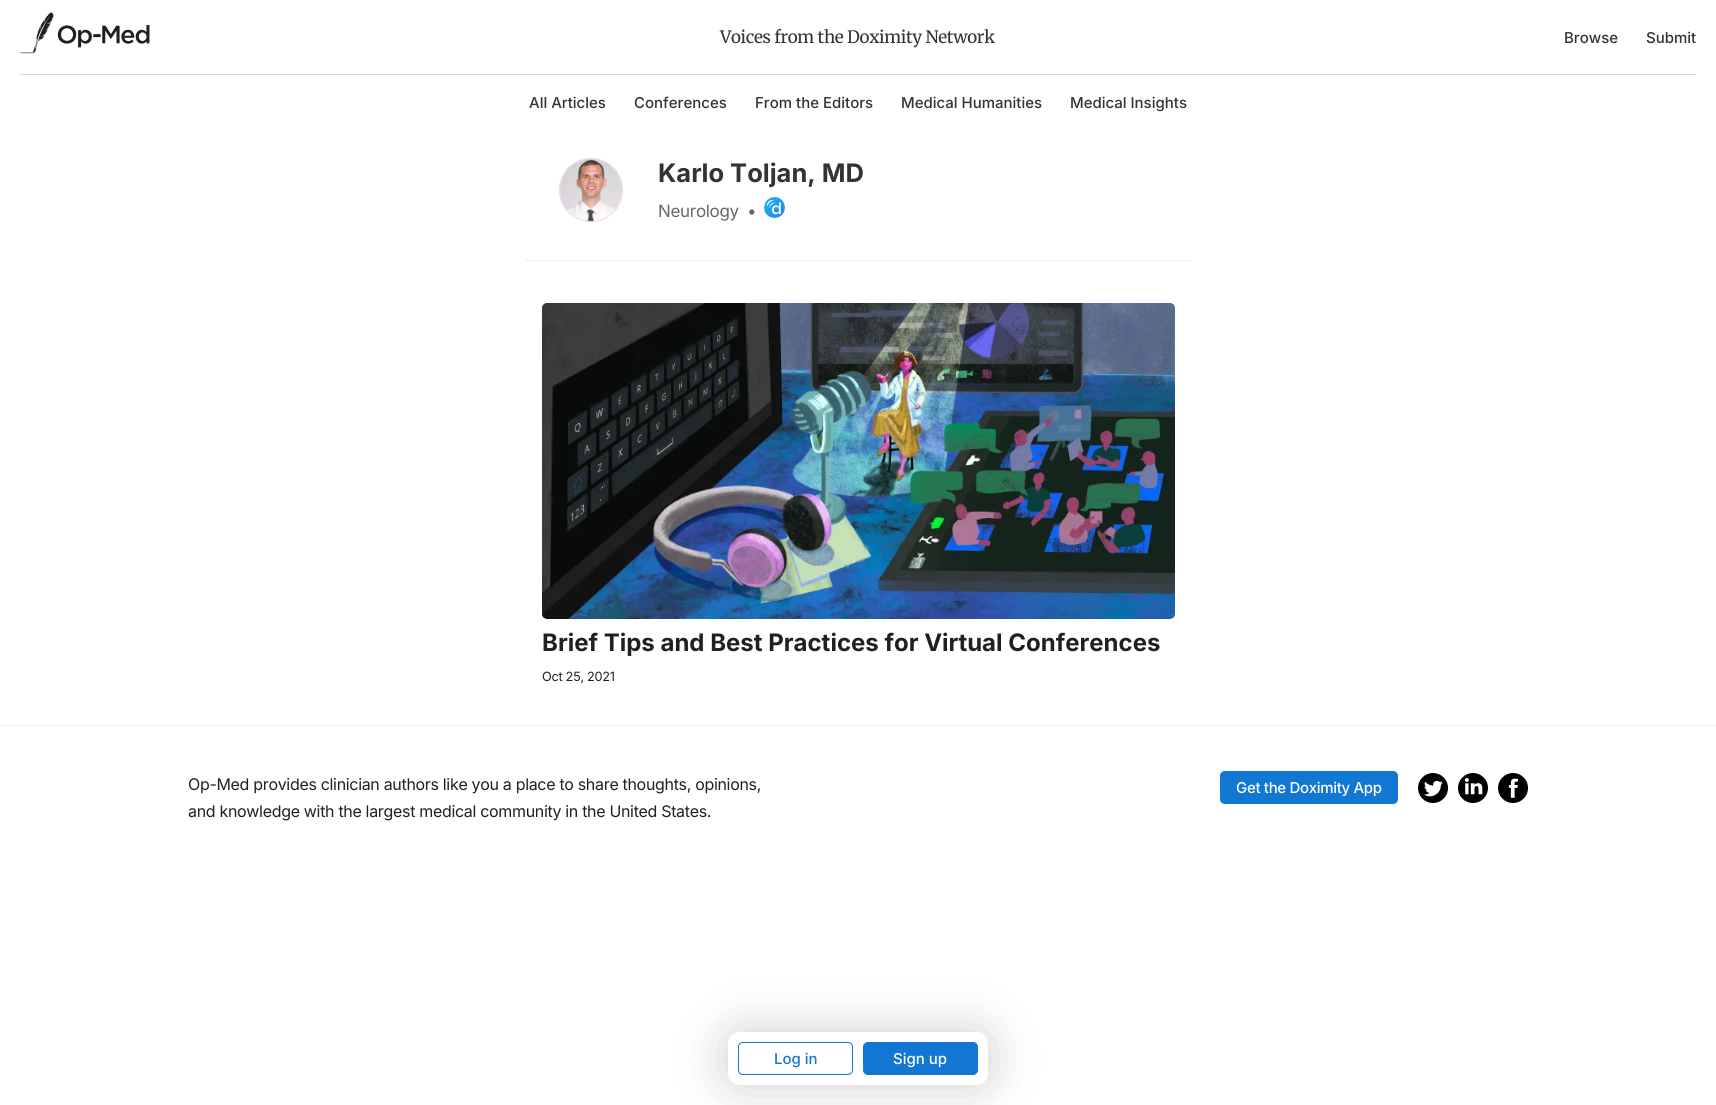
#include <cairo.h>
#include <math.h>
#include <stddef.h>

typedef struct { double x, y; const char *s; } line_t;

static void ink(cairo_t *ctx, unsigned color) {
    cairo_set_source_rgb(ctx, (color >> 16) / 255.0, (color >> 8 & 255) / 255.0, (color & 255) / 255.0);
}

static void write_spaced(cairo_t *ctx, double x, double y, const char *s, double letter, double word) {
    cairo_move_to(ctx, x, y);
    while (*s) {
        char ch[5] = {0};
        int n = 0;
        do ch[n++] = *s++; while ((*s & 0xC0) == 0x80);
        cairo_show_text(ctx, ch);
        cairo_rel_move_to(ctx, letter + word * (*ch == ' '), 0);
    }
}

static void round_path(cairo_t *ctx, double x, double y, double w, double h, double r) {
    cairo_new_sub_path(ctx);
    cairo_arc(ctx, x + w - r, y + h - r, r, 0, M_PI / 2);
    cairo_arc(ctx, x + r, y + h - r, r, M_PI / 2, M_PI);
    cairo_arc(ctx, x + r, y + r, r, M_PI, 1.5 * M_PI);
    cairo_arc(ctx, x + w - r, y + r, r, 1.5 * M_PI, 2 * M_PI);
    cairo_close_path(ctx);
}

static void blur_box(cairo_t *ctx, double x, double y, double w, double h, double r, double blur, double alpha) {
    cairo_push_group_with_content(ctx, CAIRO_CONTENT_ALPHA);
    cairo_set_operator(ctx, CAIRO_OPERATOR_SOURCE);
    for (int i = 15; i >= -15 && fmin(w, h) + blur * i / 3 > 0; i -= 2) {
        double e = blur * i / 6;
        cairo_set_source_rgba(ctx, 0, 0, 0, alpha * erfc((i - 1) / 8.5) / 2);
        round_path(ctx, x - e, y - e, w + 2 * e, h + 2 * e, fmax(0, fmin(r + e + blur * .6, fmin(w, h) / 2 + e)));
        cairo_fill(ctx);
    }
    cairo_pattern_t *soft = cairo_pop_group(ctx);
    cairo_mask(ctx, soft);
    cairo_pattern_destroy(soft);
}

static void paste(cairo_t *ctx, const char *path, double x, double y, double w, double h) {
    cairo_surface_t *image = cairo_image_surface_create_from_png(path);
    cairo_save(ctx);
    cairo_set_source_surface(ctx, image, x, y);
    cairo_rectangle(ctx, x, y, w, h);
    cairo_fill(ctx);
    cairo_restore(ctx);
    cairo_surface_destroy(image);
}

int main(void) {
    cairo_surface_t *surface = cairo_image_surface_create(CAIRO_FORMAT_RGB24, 1716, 1105);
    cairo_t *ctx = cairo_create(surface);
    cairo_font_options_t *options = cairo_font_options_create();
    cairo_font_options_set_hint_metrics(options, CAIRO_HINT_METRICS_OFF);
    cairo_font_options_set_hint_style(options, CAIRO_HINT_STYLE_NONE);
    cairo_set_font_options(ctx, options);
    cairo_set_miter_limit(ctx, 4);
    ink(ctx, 0xFFFFFF);
    cairo_paint(ctx);
    ink(ctx, 0xD8D8D8);
    cairo_rectangle(ctx, 20, 74, 1676, 1);
    cairo_fill(ctx);
    paste(ctx, "media/1.png", 20, 12, 130, 42);
    cairo_select_font_face(ctx, "Merriweather", CAIRO_FONT_SLANT_NORMAL, CAIRO_FONT_WEIGHT_NORMAL);
    cairo_set_font_size(ctx, 17);
    ink(ctx, 0x333333);
    write_spaced(ctx, 720, 43, "Voices from the Doximity Network", -0.32, 0);
    cairo_select_font_face(ctx, "Inter Medium", CAIRO_FONT_SLANT_NORMAL, CAIRO_FONT_WEIGHT_NORMAL);
    cairo_set_font_size(ctx, 15);
    {
        static const line_t items[] = {
            {1564, 43, "Browse"},
            {1646, 43, "Submit"},
            {529, 108, "All Articles"},
            {634, 108, "Conferences"},
            {755, 108, "From the Editors"},
            {901, 108, "Medical Humanities"},
            {1070, 108, "Medical Insights"},
        };
        for (size_t i = 0; i < sizeof items / sizeof *items; i++) {
            cairo_move_to(ctx, items[i].x, items[i].y);
            cairo_show_text(ctx, items[i].s);
        }
    }
    cairo_new_path(ctx);
    cairo_arc(ctx, 591, 190, 31.5, 0, 2 * M_PI);
    ink(ctx, 0xDDDDDD);
    cairo_set_line_width(ctx, 1);
    cairo_stroke(ctx);
    paste(ctx, "media/2.png", 560, 159, 62, 62);
    cairo_select_font_face(ctx, "Inter", CAIRO_FONT_SLANT_NORMAL, CAIRO_FONT_WEIGHT_BOLD);
    cairo_set_font_size(ctx, 25.5);
    ink(ctx, 0x333333);
    cairo_move_to(ctx, 658, 182);
    cairo_show_text(ctx, "Karlo Toljan, MD");
    cairo_select_font_face(ctx, "Inter", CAIRO_FONT_SLANT_NORMAL, CAIRO_FONT_WEIGHT_NORMAL);
    cairo_set_font_size(ctx, 17);
    ink(ctx, 0x666666);
    write_spaced(ctx, 658, 217, "Neurology", -0.32, 0);
    write_spaced(ctx, 747, 217, "•", -0.32, 0);
    paste(ctx, "media/3.png", 764, 197, 21, 21);
    ink(ctx, 0xEEEEEE);
    cairo_rectangle(ctx, 525, 260, 667, 1);
    cairo_fill(ctx);
    paste(ctx, "media/4.png", 542, 303, 633, 316);
    cairo_select_font_face(ctx, "Inter", CAIRO_FONT_SLANT_NORMAL, CAIRO_FONT_WEIGHT_BOLD);
    cairo_set_font_size(ctx, 24);
    ink(ctx, 0x231F20);
    cairo_move_to(ctx, 542, 651);
    cairo_show_text(ctx, "Brief Tips and Best Practices for Virtual Conferences");
    cairo_select_font_face(ctx, "Inter", CAIRO_FONT_SLANT_NORMAL, CAIRO_FONT_WEIGHT_NORMAL);
    cairo_set_font_size(ctx, 12.75);
    write_spaced(ctx, 542, 681, "Oct 25, 2021", -0.32, 0);
    ink(ctx, 0xEEEEEE);
    cairo_rectangle(ctx, 0, 725, 1716, 1);
    cairo_fill(ctx);
    cairo_set_font_size(ctx, 16);
    ink(ctx, 0x231F20);
    write_spaced(ctx, 188, 790, "Op-Med provides clinician authors like you a place to share thoughts, opinions,", -0.32, 0);
    write_spaced(ctx, 188, 817, "and knowledge with the largest medical community in the United States.", -0.32, 0);
    ink(ctx, 0x1276D3);
    round_path(ctx, 1220.5, 771.5, 177, 32, 4.5);
    cairo_fill_preserve(ctx);
    cairo_stroke(ctx);
    cairo_select_font_face(ctx, "Inter Medium", CAIRO_FONT_SLANT_NORMAL, CAIRO_FONT_WEIGHT_NORMAL);
    cairo_set_font_size(ctx, 15);
    ink(ctx, 0xFFFFFF);
    write_spaced(ctx, 1236, 793, "Get the Doximity App", -0.32, 0);
    paste(ctx, "media/5.png", 1418, 773, 30, 30);
    paste(ctx, "media/6.png", 1458, 773, 30, 30);
    paste(ctx, "media/7.png", 1498, 773, 30, 30);
    cairo_save(ctx);
    cairo_set_fill_rule(ctx, CAIRO_FILL_RULE_EVEN_ODD);
    cairo_new_path(ctx);
    cairo_move_to(ctx, 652, 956);
    cairo_line_to(ctx, 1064, 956);
    cairo_line_to(ctx, 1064, 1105);
    cairo_line_to(ctx, 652, 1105);
    cairo_close_path(ctx);
    cairo_move_to(ctx, 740, 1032);
    cairo_line_to(ctx, 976, 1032);
    cairo_curve_to(ctx, 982.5, 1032, 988, 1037.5, 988, 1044);
    cairo_line_to(ctx, 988, 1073);
    cairo_curve_to(ctx, 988, 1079.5, 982.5, 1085, 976, 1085);
    cairo_line_to(ctx, 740, 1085);
    cairo_curve_to(ctx, 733.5, 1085, 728, 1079.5, 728, 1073);
    cairo_line_to(ctx, 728, 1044);
    cairo_curve_to(ctx, 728, 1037.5, 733.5, 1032, 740, 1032);
    cairo_close_path(ctx);
    cairo_clip(ctx);
    ink(ctx, 0x000000);
    blur_box(ctx, 728, 1032, 260, 53, 12, 25, 0.2);
    cairo_restore(ctx);
    cairo_set_source_rgba(ctx, 1, 1, 1, 0.75);
    round_path(ctx, 728, 1032, 260, 53, 12);
    cairo_fill(ctx);
    round_path(ctx, 738.5, 1042.5, 114, 32, 4.5);
    ink(ctx, 0x1276D3);
    cairo_stroke(ctx);
    cairo_move_to(ctx, 774, 1064);
    cairo_show_text(ctx, "Log in");
    round_path(ctx, 863.5, 1042.5, 114, 32, 4.5);
    cairo_fill_preserve(ctx);
    cairo_stroke(ctx);
    ink(ctx, 0xFFFFFF);
    cairo_move_to(ctx, 893, 1064);
    cairo_show_text(ctx, "Sign up");
    cairo_surface_write_to_png(surface, "image.png");
    cairo_font_options_destroy(options);
    cairo_destroy(ctx);
    cairo_surface_destroy(surface);
    return 0;
}
